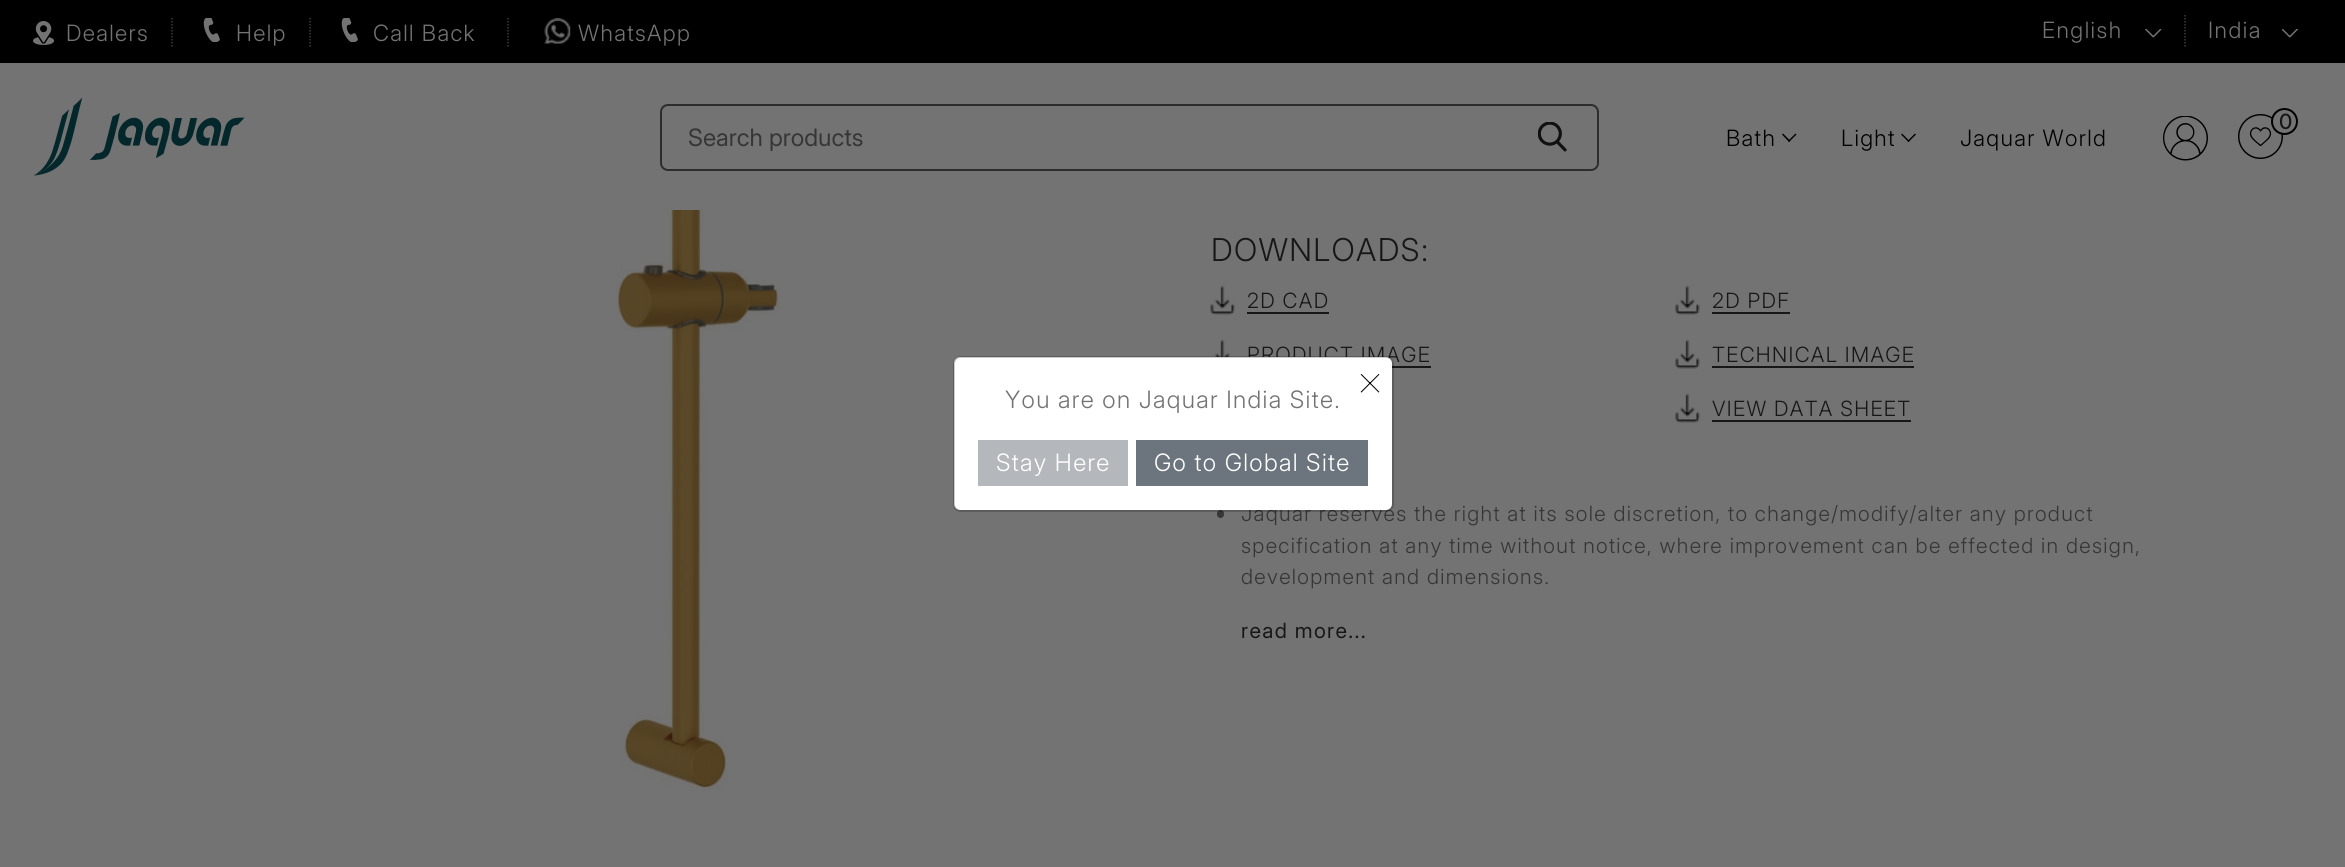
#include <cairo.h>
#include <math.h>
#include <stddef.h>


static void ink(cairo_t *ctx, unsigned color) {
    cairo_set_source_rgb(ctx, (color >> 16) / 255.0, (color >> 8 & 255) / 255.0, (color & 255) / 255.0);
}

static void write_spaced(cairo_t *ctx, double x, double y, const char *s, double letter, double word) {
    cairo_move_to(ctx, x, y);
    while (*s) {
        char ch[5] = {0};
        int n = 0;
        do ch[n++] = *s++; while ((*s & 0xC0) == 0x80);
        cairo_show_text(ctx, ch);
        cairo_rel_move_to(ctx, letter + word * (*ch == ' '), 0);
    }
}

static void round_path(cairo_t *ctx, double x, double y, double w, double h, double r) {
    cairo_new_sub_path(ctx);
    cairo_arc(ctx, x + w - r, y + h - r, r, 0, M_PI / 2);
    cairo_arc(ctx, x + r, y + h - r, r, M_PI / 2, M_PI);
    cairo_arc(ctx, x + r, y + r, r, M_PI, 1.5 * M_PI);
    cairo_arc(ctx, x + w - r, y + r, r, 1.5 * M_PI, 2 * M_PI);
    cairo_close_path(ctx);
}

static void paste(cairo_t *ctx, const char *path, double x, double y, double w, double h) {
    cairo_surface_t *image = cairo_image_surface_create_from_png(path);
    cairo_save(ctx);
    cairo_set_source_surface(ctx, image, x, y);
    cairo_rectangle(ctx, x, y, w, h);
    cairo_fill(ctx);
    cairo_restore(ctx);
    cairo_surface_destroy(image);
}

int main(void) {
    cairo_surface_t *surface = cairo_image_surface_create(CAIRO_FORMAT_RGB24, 2345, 867);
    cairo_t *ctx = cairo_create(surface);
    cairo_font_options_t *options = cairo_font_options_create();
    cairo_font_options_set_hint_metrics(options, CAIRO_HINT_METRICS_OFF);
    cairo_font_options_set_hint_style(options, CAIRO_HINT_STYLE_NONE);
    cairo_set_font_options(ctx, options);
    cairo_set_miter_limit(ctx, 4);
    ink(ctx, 0x737373);
    cairo_paint(ctx);
    ink(ctx, 0x000000);
    cairo_rectangle(ctx, 0, 0, 2345, 63);
    cairo_fill(ctx);
    cairo_new_path(ctx);
    cairo_move_to(ctx, 172, 18);
    cairo_line_to(ctx, 172, 46.5);
    ink(ctx, 0x3A3A3A);
    cairo_set_line_width(ctx, 1.5);
    cairo_set_dash(ctx, (double[]){1.5, 1.5}, 2, 0);
    cairo_stroke(ctx);
    paste(ctx, "media/1.png", 33, 21, 22, 24);
    cairo_select_font_face(ctx, "Inter Light", CAIRO_FONT_SLANT_NORMAL, CAIRO_FONT_WEIGHT_NORMAL);
    cairo_set_font_size(ctx, 22.5);
    ink(ctx, 0x737373);
    write_spaced(ctx, 66, 41, "Dealers", 1.35, 0);
    cairo_new_path(ctx);
    cairo_move_to(ctx, 310, 18);
    cairo_line_to(ctx, 310, 46.5);
    ink(ctx, 0x3A3A3A);
    cairo_stroke(ctx);
    paste(ctx, "media/2.png", 203, 18, 17, 24);
    ink(ctx, 0x737373);
    write_spaced(ctx, 236, 41, "Help", 1.35, 0);
    cairo_new_path(ctx);
    cairo_move_to(ctx, 508, 18);
    cairo_line_to(ctx, 508, 46.5);
    ink(ctx, 0x3A3A3A);
    cairo_stroke(ctx);
    paste(ctx, "media/2.png", 341, 18, 17, 24);
    ink(ctx, 0x737373);
    write_spaced(ctx, 373, 41, "Call Back", 1.35, 0);
    paste(ctx, "media/3.png", 544, 18, 27, 26);
    write_spaced(ctx, 578, 41, "WhatsApp", 1.35, 0);
    paste(ctx, "media/4.png", 2145, 29, 17, 9);
    write_spaced(ctx, 2042, 38, "English", 1.5, 0);
    cairo_new_path(ctx);
    cairo_move_to(ctx, 2185, 15);
    cairo_line_to(ctx, 2185, 48);
    ink(ctx, 0x3A3A3A);
    cairo_stroke(ctx);
    paste(ctx, "media/5.png", 2282, 29, 16, 9);
    ink(ctx, 0x737373);
    write_spaced(ctx, 2208, 38, "India", 1.5, 0);
    paste(ctx, "media/6.png", 33, 98, 212, 78);
    paste(ctx, "media/7.png", 2163, 116, 45, 45);
    paste(ctx, "media/8.png", 2238, 114, 45, 45);
    cairo_arc(ctx, 2284.5, 121.5, 12.5, 0, 2 * M_PI);
    cairo_fill_preserve(ctx);
    ink(ctx, 0x000000);
    cairo_set_line_width(ctx, 2);
    cairo_set_dash(ctx, NULL, 0, 0);
    cairo_stroke(ctx);
    cairo_select_font_face(ctx, "Inter Medium", CAIRO_FONT_SLANT_NORMAL, CAIRO_FONT_WEIGHT_NORMAL);
    cairo_set_font_size(ctx, 21);
    ink(ctx, 0x171717);
    write_spaced(ctx, 2279, 129, "0", 1.35, 0);
    round_path(ctx, 661, 105, 937, 65, 7);
    ink(ctx, 0x2D2D2D);
    cairo_stroke(ctx);
    cairo_select_font_face(ctx, "Inter", CAIRO_FONT_SLANT_NORMAL, CAIRO_FONT_WEIGHT_NORMAL);
    cairo_set_font_size(ctx, 24);
    ink(ctx, 0x363636);
    cairo_move_to(ctx, 688, 146);
    cairo_show_text(ctx, "Search products");
    paste(ctx, "media/9.png", 1538, 122, 29, 30);
    cairo_select_font_face(ctx, "Inter Light", CAIRO_FONT_SLANT_NORMAL, CAIRO_FONT_WEIGHT_NORMAL);
    cairo_set_font_size(ctx, 22.5);
    ink(ctx, 0x000000);
    write_spaced(ctx, 1726, 146, "Bath", 1.35, 0);
    cairo_new_path(ctx);
    cairo_move_to(ctx, 1795.5, 133.5);
    cairo_line_to(ctx, 1796.5, 134.5);
    cairo_line_to(ctx, 1789, 142);
    cairo_line_to(ctx, 1788, 141);
    cairo_close_path(ctx);
    cairo_fill(ctx);
    cairo_new_path(ctx);
    cairo_move_to(ctx, 1783, 133.5);
    cairo_line_to(ctx, 1790.5, 141);
    cairo_line_to(ctx, 1789, 142);
    cairo_line_to(ctx, 1782, 134.5);
    cairo_close_path(ctx);
    cairo_fill(ctx);
    write_spaced(ctx, 1841, 146, "Light", 1.35, 0);
    cairo_new_path(ctx);
    cairo_move_to(ctx, 1915, 133.5);
    cairo_line_to(ctx, 1916, 134.5);
    cairo_line_to(ctx, 1908.5, 142);
    cairo_line_to(ctx, 1907.5, 141);
    cairo_close_path(ctx);
    cairo_fill(ctx);
    cairo_new_path(ctx);
    cairo_move_to(ctx, 1902, 133.5);
    cairo_line_to(ctx, 1909.5, 141);
    cairo_line_to(ctx, 1908.5, 142);
    cairo_line_to(ctx, 1901, 134.5);
    cairo_close_path(ctx);
    cairo_fill(ctx);
    write_spaced(ctx, 1960, 146, "Jaquar World", 1.35, 0);
    cairo_set_font_size(ctx, 21);
    ink(ctx, 0x171717);
    write_spaced(ctx, 1247, 362, "PRODUCT IMAGE", 1.35, 0);
    ink(ctx, 0x363636);
    write_spaced(ctx, 1241, 521, "Jaquar reserves the right at its sole discretion, to change/modify/alter any product", 1.35, 0);
    ink(ctx, 0xFFFFFF);
    round_path(ctx, 954, 357, 438, 153, 6);
    cairo_fill(ctx);
    paste(ctx, "media/12.png", 1210, 339, 24, 18);
    ink(ctx, 0x171717);
    cairo_rectangle(ctx, 1392, 366, 39, 2);
    cairo_fill(ctx);
    ink(ctx, 0x363636);
    round_path(ctx, 1217, 510, 7, 8, 3.5);
    cairo_fill(ctx);
    round_path(ctx, 954, 357, 439, 154, 7);
    cairo_set_source_rgba(ctx, 0, 0, 0, 0.2);
    cairo_stroke(ctx);
    cairo_select_font_face(ctx, "Inter Thin", CAIRO_FONT_SLANT_NORMAL, CAIRO_FONT_WEIGHT_NORMAL);
    cairo_set_font_size(ctx, 45);
    ink(ctx, 0x000000);
    cairo_move_to(ctx, 1356, 396);
    cairo_show_text(ctx, "×");
    cairo_select_font_face(ctx, "Inter Light", CAIRO_FONT_SLANT_NORMAL, CAIRO_FONT_WEIGHT_NORMAL);
    cairo_set_font_size(ctx, 24);
    ink(ctx, 0x737373);
    write_spaced(ctx, 1005, 408, "You are on Jaquar India Site.", 1.35, 0);
    ink(ctx, 0xB4B8BC);
    cairo_rectangle(ctx, 978, 440, 150, 46);
    cairo_fill(ctx);
    ink(ctx, 0xFFFFFF);
    write_spaced(ctx, 996, 471, "Stay Here", 1.35, 0);
    ink(ctx, 0x6C757D);
    cairo_rectangle(ctx, 1136, 440, 232, 46);
    cairo_fill(ctx);
    ink(ctx, 0xFFFFFF);
    write_spaced(ctx, 1154, 471, "Go to Global Site", 1.35, 0);
    paste(ctx, "media/10.png", 616, 210, 164, 581);
    cairo_set_font_size(ctx, 31.5);
    ink(ctx, 0x171717);
    write_spaced(ctx, 1211, 261, "DOWNLOADS:", 1.35, 0);
    paste(ctx, "media/11.png", 1210, 285, 25, 30);
    cairo_set_font_size(ctx, 21);
    write_spaced(ctx, 1247, 308, "2D CAD", 1.35, 0);
    cairo_rectangle(ctx, 1247, 312, 82, 2);
    cairo_fill(ctx);
    paste(ctx, "media/11.png", 1675, 285, 25, 30);
    write_spaced(ctx, 1712, 308, "2D PDF", 1.35, 0);
    cairo_rectangle(ctx, 1712, 312, 78, 2);
    cairo_fill(ctx);
    paste(ctx, "media/11.png", 1675, 339, 25, 30);
    write_spaced(ctx, 1712, 362, "TECHNICAL IMAGE", 1.35, 0);
    cairo_rectangle(ctx, 1712, 366, 202, 2);
    cairo_fill(ctx);
    paste(ctx, "media/11.png", 1675, 393, 25, 30);
    write_spaced(ctx, 1712, 416, "VIEW DATA SHEET", 1.35, 0);
    cairo_rectangle(ctx, 1712, 420, 199, 2);
    cairo_fill(ctx);
    ink(ctx, 0x363636);
    write_spaced(ctx, 1241, 553, "specification at any time without notice, where improvement can be effected in design,", 1.35, 0);
    write_spaced(ctx, 1241, 584, "development and dimensions.", 1.35, 0);
    cairo_select_font_face(ctx, "Inter", CAIRO_FONT_SLANT_NORMAL, CAIRO_FONT_WEIGHT_NORMAL);
    ink(ctx, 0x171717);
    write_spaced(ctx, 1241, 638, "read more...", 1.35, 0);
    cairo_surface_write_to_png(surface, "image.png");
    cairo_font_options_destroy(options);
    cairo_destroy(ctx);
    cairo_surface_destroy(surface);
    return 0;
}
